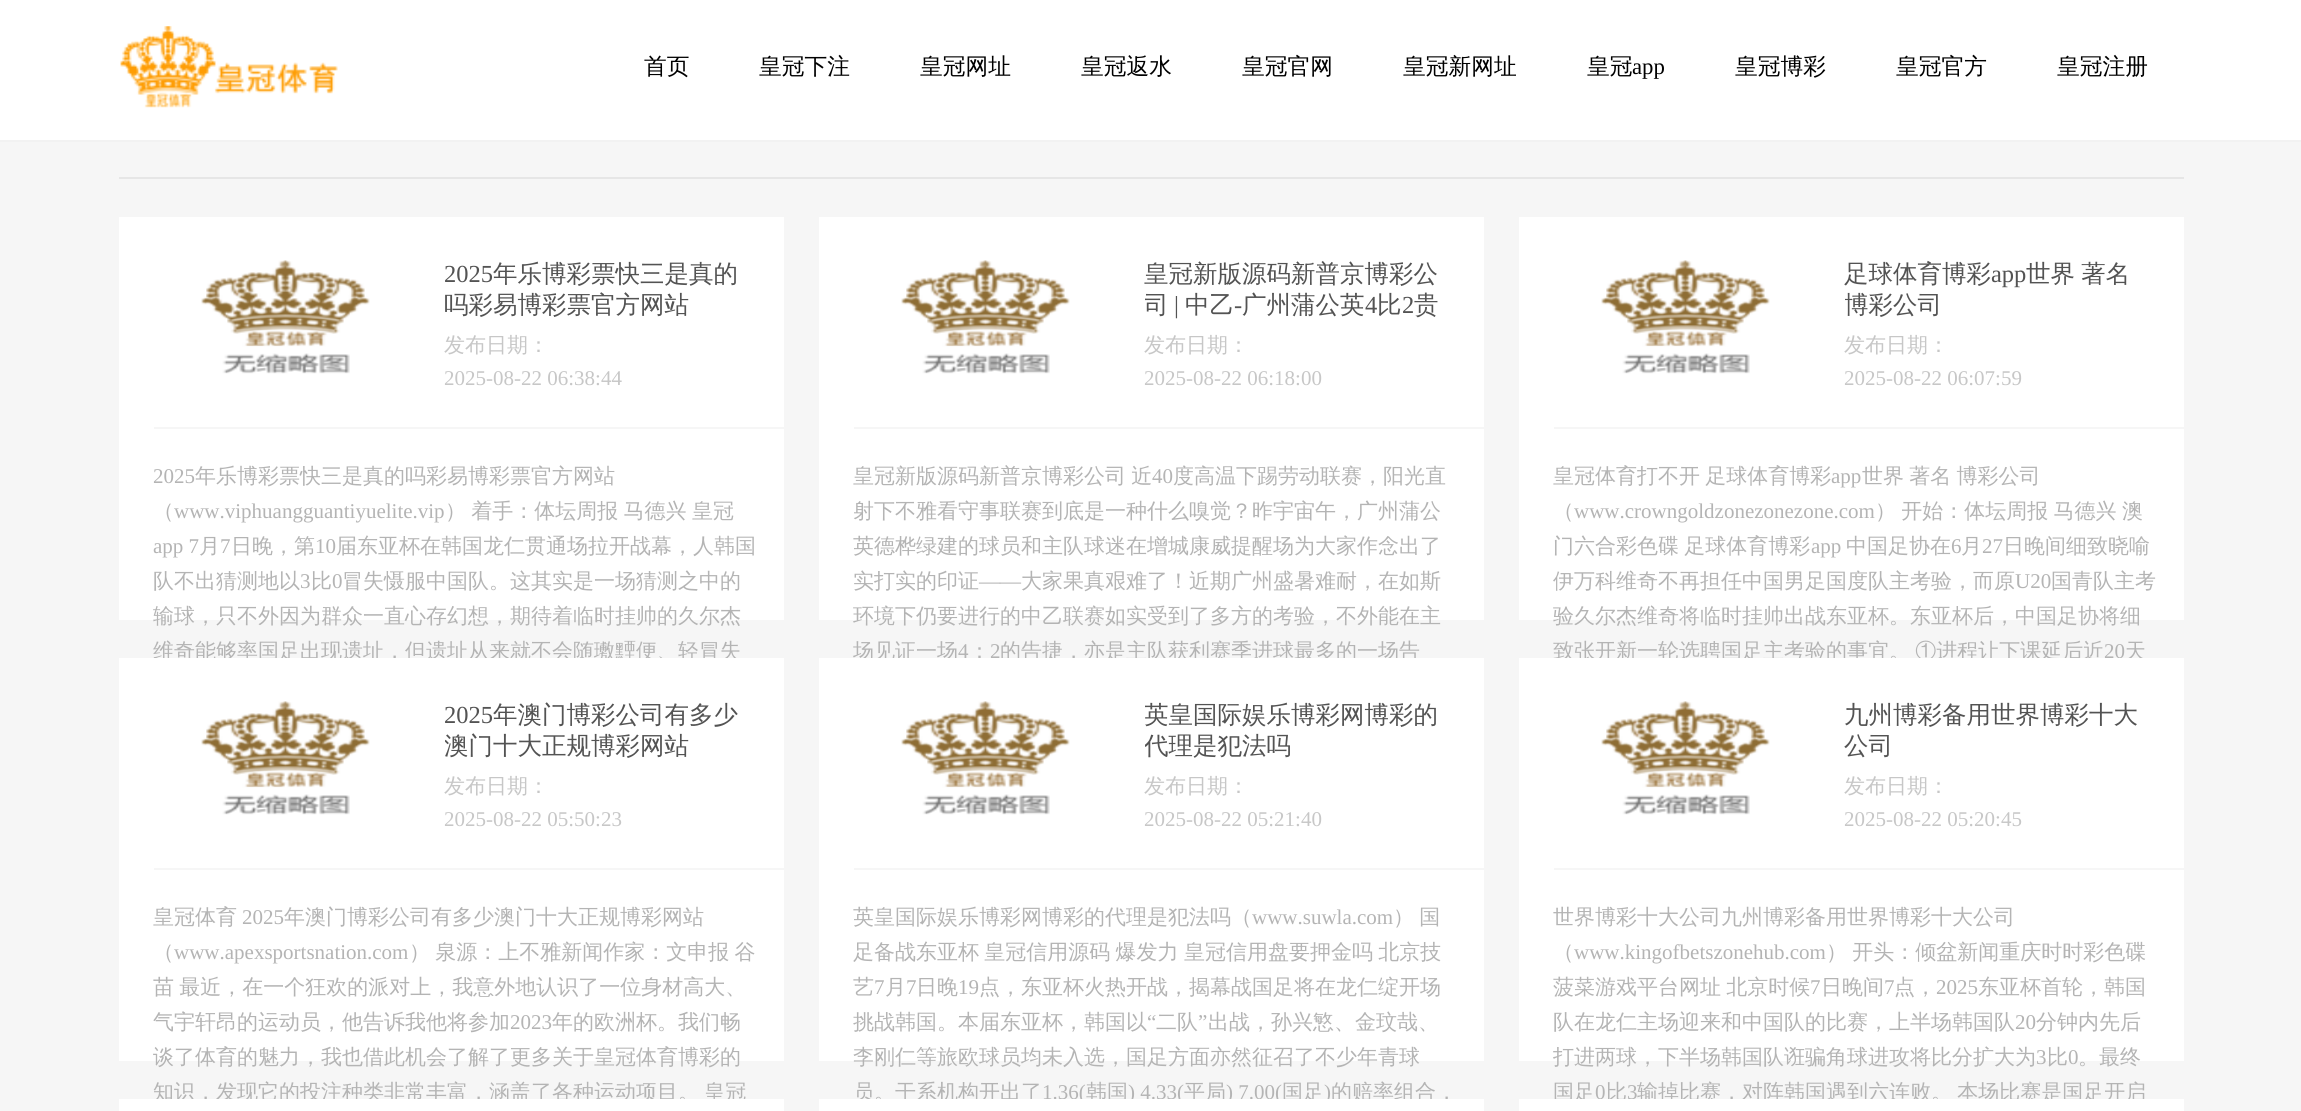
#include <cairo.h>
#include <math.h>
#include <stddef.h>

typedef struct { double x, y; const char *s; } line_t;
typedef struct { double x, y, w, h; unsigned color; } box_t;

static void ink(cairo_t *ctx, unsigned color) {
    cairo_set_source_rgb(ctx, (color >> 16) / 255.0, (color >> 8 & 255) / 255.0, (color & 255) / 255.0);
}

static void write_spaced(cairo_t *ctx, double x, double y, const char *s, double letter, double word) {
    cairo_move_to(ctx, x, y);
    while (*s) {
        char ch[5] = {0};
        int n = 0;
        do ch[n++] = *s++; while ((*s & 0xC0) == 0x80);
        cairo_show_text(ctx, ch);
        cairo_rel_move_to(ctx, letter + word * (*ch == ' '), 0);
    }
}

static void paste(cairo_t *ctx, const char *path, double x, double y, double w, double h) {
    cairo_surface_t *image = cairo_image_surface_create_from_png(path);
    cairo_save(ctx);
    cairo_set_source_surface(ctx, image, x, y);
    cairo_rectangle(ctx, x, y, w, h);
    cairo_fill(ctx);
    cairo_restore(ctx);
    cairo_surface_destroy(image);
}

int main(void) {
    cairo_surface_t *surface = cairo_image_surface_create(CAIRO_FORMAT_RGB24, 2301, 1111);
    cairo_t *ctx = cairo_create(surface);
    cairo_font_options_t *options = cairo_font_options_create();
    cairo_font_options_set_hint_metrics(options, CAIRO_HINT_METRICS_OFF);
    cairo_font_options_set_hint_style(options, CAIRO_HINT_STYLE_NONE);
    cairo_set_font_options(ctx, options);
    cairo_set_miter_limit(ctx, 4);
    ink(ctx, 0xFFFFFF);
    cairo_paint(ctx);
    paste(ctx, "media/1.png", 120, 26, 218, 82);
    cairo_select_font_face(ctx, "WenQuanYi Zen Hei Medium", CAIRO_FONT_SLANT_NORMAL, CAIRO_FONT_WEIGHT_NORMAL);
    cairo_set_font_size(ctx, 22.75);
    ink(ctx, 0x000000);
    {
        static const line_t items[] = {
            {644, 74, "首页"},
            {759, 74, "皇冠下注"},
            {920, 74, "皇冠网址"},
            {1081, 74, "皇冠返水"},
            {1242, 74, "皇冠官网"},
            {1403, 74, "皇冠新网址"},
            {1587, 74, "皇冠"},
        };
        for (size_t i = 0; i < sizeof items / sizeof *items; i++) {
            cairo_move_to(ctx, items[i].x, items[i].y);
            cairo_show_text(ctx, items[i].s);
        }
    }
    cairo_select_font_face(ctx, "Liberation Serif", CAIRO_FONT_SLANT_NORMAL, CAIRO_FONT_WEIGHT_NORMAL);
    cairo_move_to(ctx, 1632, 74);
    cairo_show_text(ctx, "app");
    cairo_select_font_face(ctx, "WenQuanYi Zen Hei Medium", CAIRO_FONT_SLANT_NORMAL, CAIRO_FONT_WEIGHT_NORMAL);
    {
        static const line_t items[] = {
            {1735, 74, "皇冠博彩"},
            {1896, 74, "皇冠官方"},
            {2057, 74, "皇冠注册"},
        };
        for (size_t i = 0; i < sizeof items / sizeof *items; i++) {
            cairo_move_to(ctx, items[i].x, items[i].y);
            cairo_show_text(ctx, items[i].s);
        }
    }
    {
        static const box_t items[] = {
            {0, 142, 2301, 969, 0xF6F6F6},
            {0, 140, 2301, 2, 0xF2F2F2},
            {119, 177, 2065, 2, 0xE6E6E6},
            {119, 217, 665, 403, 0xFFFFFF},
        };
        for (size_t i = 0; i < sizeof items / sizeof *items; i++) {
            ink(ctx, items[i].color);
            cairo_rectangle(ctx, items[i].x, items[i].y, items[i].w, items[i].h);
            cairo_fill(ctx);
        }
    }
    paste(ctx, "media/2.png", 201, 260, 169, 114);
    cairo_select_font_face(ctx, "Liberation Serif", CAIRO_FONT_SLANT_NORMAL, CAIRO_FONT_WEIGHT_NORMAL);
    cairo_set_font_size(ctx, 24.5);
    ink(ctx, 0x535353);
    cairo_move_to(ctx, 444, 282);
    cairo_show_text(ctx, "2025");
    cairo_select_font_face(ctx, "WenQuanYi Zen Hei Medium", CAIRO_FONT_SLANT_NORMAL, CAIRO_FONT_WEIGHT_NORMAL);
    cairo_move_to(ctx, 493, 282);
    cairo_show_text(ctx, "年乐博彩票快三是真的");
    cairo_save(ctx);
    cairo_rectangle(ctx, 445, 217, 301, 109);
    cairo_clip(ctx);
    cairo_move_to(ctx, 444, 313);
    cairo_show_text(ctx, "吗彩易博彩票官方网站");
    cairo_restore(ctx);
    cairo_set_font_size(ctx, 21);
    ink(ctx, 0xC7C7C7);
    cairo_move_to(ctx, 444, 352);
    cairo_show_text(ctx, "发布日期：");
    cairo_select_font_face(ctx, "Liberation Serif", CAIRO_FONT_SLANT_NORMAL, CAIRO_FONT_WEIGHT_NORMAL);
    cairo_move_to(ctx, 444, 385);
    cairo_show_text(ctx, "2025-08-22 06:38:44");
    ink(ctx, 0xF6F6F6);
    cairo_rectangle(ctx, 154, 427, 630, 2);
    cairo_fill(ctx);
    ink(ctx, 0xB4B4B4);
    cairo_move_to(ctx, 153, 483);
    cairo_show_text(ctx, "2025");
    cairo_select_font_face(ctx, "WenQuanYi Zen Hei Medium", CAIRO_FONT_SLANT_NORMAL, CAIRO_FONT_WEIGHT_NORMAL);
    cairo_move_to(ctx, 195, 483);
    cairo_show_text(ctx, "年乐博彩票快三是真的吗彩易博彩票官方网站");
    cairo_move_to(ctx, 153, 518);
    cairo_show_text(ctx, "（");
    cairo_select_font_face(ctx, "Liberation Serif", CAIRO_FONT_SLANT_NORMAL, CAIRO_FONT_WEIGHT_NORMAL);
    cairo_move_to(ctx, 174, 518);
    cairo_show_text(ctx, "www.viphuangguantiyuelite.vip");
    cairo_select_font_face(ctx, "WenQuanYi Zen Hei Medium", CAIRO_FONT_SLANT_NORMAL, CAIRO_FONT_WEIGHT_NORMAL);
    write_spaced(ctx, 445, 518, "） 着手：体坛周报 马德兴 皇冠", 0, -1);
    cairo_select_font_face(ctx, "Liberation Serif", CAIRO_FONT_SLANT_NORMAL, CAIRO_FONT_WEIGHT_NORMAL);
    cairo_move_to(ctx, 153, 553);
    cairo_show_text(ctx, "app 7");
    cairo_select_font_face(ctx, "WenQuanYi Zen Hei Medium", CAIRO_FONT_SLANT_NORMAL, CAIRO_FONT_WEIGHT_NORMAL);
    cairo_move_to(ctx, 199, 553);
    cairo_show_text(ctx, "月");
    cairo_select_font_face(ctx, "Liberation Serif", CAIRO_FONT_SLANT_NORMAL, CAIRO_FONT_WEIGHT_NORMAL);
    cairo_move_to(ctx, 220, 553);
    cairo_show_text(ctx, "7");
    cairo_select_font_face(ctx, "WenQuanYi Zen Hei Medium", CAIRO_FONT_SLANT_NORMAL, CAIRO_FONT_WEIGHT_NORMAL);
    cairo_move_to(ctx, 231, 553);
    cairo_show_text(ctx, "日晚，第");
    cairo_select_font_face(ctx, "Liberation Serif", CAIRO_FONT_SLANT_NORMAL, CAIRO_FONT_WEIGHT_NORMAL);
    cairo_move_to(ctx, 315, 553);
    cairo_show_text(ctx, "10");
    cairo_select_font_face(ctx, "WenQuanYi Zen Hei Medium", CAIRO_FONT_SLANT_NORMAL, CAIRO_FONT_WEIGHT_NORMAL);
    cairo_move_to(ctx, 336, 553);
    cairo_show_text(ctx, "届东亚杯在韩国龙仁贯通场拉开战幕，人韩国");
    cairo_move_to(ctx, 153, 588);
    cairo_show_text(ctx, "队不出猜测地以");
    cairo_select_font_face(ctx, "Liberation Serif", CAIRO_FONT_SLANT_NORMAL, CAIRO_FONT_WEIGHT_NORMAL);
    cairo_move_to(ctx, 300, 588);
    cairo_show_text(ctx, "3");
    cairo_select_font_face(ctx, "WenQuanYi Zen Hei Medium", CAIRO_FONT_SLANT_NORMAL, CAIRO_FONT_WEIGHT_NORMAL);
    cairo_move_to(ctx, 311, 588);
    cairo_show_text(ctx, "比");
    cairo_select_font_face(ctx, "Liberation Serif", CAIRO_FONT_SLANT_NORMAL, CAIRO_FONT_WEIGHT_NORMAL);
    cairo_move_to(ctx, 332, 588);
    cairo_show_text(ctx, "0");
    cairo_select_font_face(ctx, "WenQuanYi Zen Hei Medium", CAIRO_FONT_SLANT_NORMAL, CAIRO_FONT_WEIGHT_NORMAL);
    {
        static const line_t items[] = {
            {342, 588, "冒失慑服中国队。这其实是一场猜测之中的"},
            {153, 623, "输球，只不外因为群众一直心存幻想，期待着临时挂帅的久尔杰"},
            {153, 658, "维奇能够率国足出现遗址，但遗址从来就不会随璷黫便、轻冒失"},
        };
        for (size_t i = 0; i < sizeof items / sizeof *items; i++) {
            cairo_move_to(ctx, items[i].x, items[i].y);
            cairo_show_text(ctx, items[i].s);
        }
    }
    ink(ctx, 0xFFFFFF);
    cairo_rectangle(ctx, 819, 217, 665, 403);
    cairo_fill(ctx);
    paste(ctx, "media/2.png", 901, 260, 169, 114);
    cairo_set_font_size(ctx, 24.5);
    ink(ctx, 0x535353);
    cairo_move_to(ctx, 1144, 282);
    cairo_show_text(ctx, "皇冠新版源码新普京博彩公");
    cairo_save(ctx);
    cairo_rectangle(ctx, 1145, 217, 301, 109);
    cairo_clip(ctx);
    cairo_move_to(ctx, 1144, 313);
    cairo_show_text(ctx, "司");
    cairo_restore(ctx);
    cairo_select_font_face(ctx, "Liberation Serif", CAIRO_FONT_SLANT_NORMAL, CAIRO_FONT_WEIGHT_NORMAL);
    cairo_move_to(ctx, 1174, 313);
    cairo_show_text(ctx, "|");
    cairo_select_font_face(ctx, "WenQuanYi Zen Hei Medium", CAIRO_FONT_SLANT_NORMAL, CAIRO_FONT_WEIGHT_NORMAL);
    cairo_move_to(ctx, 1185, 313);
    cairo_show_text(ctx, "中乙");
    cairo_select_font_face(ctx, "Liberation Serif", CAIRO_FONT_SLANT_NORMAL, CAIRO_FONT_WEIGHT_NORMAL);
    cairo_move_to(ctx, 1234, 313);
    cairo_show_text(ctx, "-");
    cairo_select_font_face(ctx, "WenQuanYi Zen Hei Medium", CAIRO_FONT_SLANT_NORMAL, CAIRO_FONT_WEIGHT_NORMAL);
    cairo_move_to(ctx, 1242, 313);
    cairo_show_text(ctx, "广州蒲公英");
    cairo_select_font_face(ctx, "Liberation Serif", CAIRO_FONT_SLANT_NORMAL, CAIRO_FONT_WEIGHT_NORMAL);
    cairo_move_to(ctx, 1365, 313);
    cairo_show_text(ctx, "4");
    cairo_select_font_face(ctx, "WenQuanYi Zen Hei Medium", CAIRO_FONT_SLANT_NORMAL, CAIRO_FONT_WEIGHT_NORMAL);
    cairo_move_to(ctx, 1377, 313);
    cairo_show_text(ctx, "比");
    cairo_select_font_face(ctx, "Liberation Serif", CAIRO_FONT_SLANT_NORMAL, CAIRO_FONT_WEIGHT_NORMAL);
    cairo_move_to(ctx, 1402, 313);
    cairo_show_text(ctx, "2");
    cairo_select_font_face(ctx, "WenQuanYi Zen Hei Medium", CAIRO_FONT_SLANT_NORMAL, CAIRO_FONT_WEIGHT_NORMAL);
    cairo_move_to(ctx, 1414, 313);
    cairo_show_text(ctx, "贵");
    cairo_set_font_size(ctx, 21);
    ink(ctx, 0xC7C7C7);
    cairo_move_to(ctx, 1144, 352);
    cairo_show_text(ctx, "发布日期：");
    cairo_select_font_face(ctx, "Liberation Serif", CAIRO_FONT_SLANT_NORMAL, CAIRO_FONT_WEIGHT_NORMAL);
    cairo_move_to(ctx, 1144, 385);
    cairo_show_text(ctx, "2025-08-22 06:18:00");
    ink(ctx, 0xF6F6F6);
    cairo_rectangle(ctx, 854, 427, 630, 2);
    cairo_fill(ctx);
    cairo_select_font_face(ctx, "WenQuanYi Zen Hei Medium", CAIRO_FONT_SLANT_NORMAL, CAIRO_FONT_WEIGHT_NORMAL);
    ink(ctx, 0xB4B4B4);
    write_spaced(ctx, 853, 483, "皇冠新版源码新普京博彩公司 近", 0, -1);
    cairo_select_font_face(ctx, "Liberation Serif", CAIRO_FONT_SLANT_NORMAL, CAIRO_FONT_WEIGHT_NORMAL);
    cairo_move_to(ctx, 1152, 483);
    cairo_show_text(ctx, "40");
    cairo_select_font_face(ctx, "WenQuanYi Zen Hei Medium", CAIRO_FONT_SLANT_NORMAL, CAIRO_FONT_WEIGHT_NORMAL);
    {
        static const line_t items[] = {
            {1173, 483, "度高温下踢劳动联赛，阳光直"},
            {853, 518, "射下不雅看守事联赛到底是一种什么嗅觉？昨宇宙午，广州蒲公"},
            {853, 553, "英德桦绿建的球员和主队球迷在增城康威提醒场为大家作念出了"},
            {853, 588, "实打实的印证"},
        };
        for (size_t i = 0; i < sizeof items / sizeof *items; i++) {
            cairo_move_to(ctx, items[i].x, items[i].y);
            cairo_show_text(ctx, items[i].s);
        }
    }
    cairo_select_font_face(ctx, "Liberation Serif", CAIRO_FONT_SLANT_NORMAL, CAIRO_FONT_WEIGHT_NORMAL);
    cairo_move_to(ctx, 979, 588);
    cairo_show_text(ctx, "——");
    cairo_select_font_face(ctx, "WenQuanYi Zen Hei Medium", CAIRO_FONT_SLANT_NORMAL, CAIRO_FONT_WEIGHT_NORMAL);
    {
        static const line_t items[] = {
            {1021, 588, "大家果真艰难了！近期广州盛暑难耐，在如斯"},
            {853, 623, "环境下仍要进行的中乙联赛如实受到了多方的考验，不外能在主"},
            {853, 658, "场见证一场"},
        };
        for (size_t i = 0; i < sizeof items / sizeof *items; i++) {
            cairo_move_to(ctx, items[i].x, items[i].y);
            cairo_show_text(ctx, items[i].s);
        }
    }
    cairo_select_font_face(ctx, "Liberation Serif", CAIRO_FONT_SLANT_NORMAL, CAIRO_FONT_WEIGHT_NORMAL);
    cairo_move_to(ctx, 958, 658);
    cairo_show_text(ctx, "4");
    cairo_select_font_face(ctx, "WenQuanYi Zen Hei Medium", CAIRO_FONT_SLANT_NORMAL, CAIRO_FONT_WEIGHT_NORMAL);
    cairo_move_to(ctx, 969, 658);
    cairo_show_text(ctx, "：");
    cairo_select_font_face(ctx, "Liberation Serif", CAIRO_FONT_SLANT_NORMAL, CAIRO_FONT_WEIGHT_NORMAL);
    cairo_move_to(ctx, 990, 658);
    cairo_show_text(ctx, "2");
    cairo_select_font_face(ctx, "WenQuanYi Zen Hei Medium", CAIRO_FONT_SLANT_NORMAL, CAIRO_FONT_WEIGHT_NORMAL);
    cairo_move_to(ctx, 1000, 658);
    cairo_show_text(ctx, "的告捷，亦是主队获利赛季进球最多的一场告");
    ink(ctx, 0xFFFFFF);
    cairo_rectangle(ctx, 1519, 217, 665, 403);
    cairo_fill(ctx);
    paste(ctx, "media/3.png", 1601, 260, 169, 114);
    cairo_set_font_size(ctx, 24.5);
    ink(ctx, 0x535353);
    cairo_move_to(ctx, 1844, 282);
    cairo_show_text(ctx, "足球体育博彩");
    cairo_select_font_face(ctx, "Liberation Serif", CAIRO_FONT_SLANT_NORMAL, CAIRO_FONT_WEIGHT_NORMAL);
    cairo_move_to(ctx, 1991, 282);
    cairo_show_text(ctx, "app");
    cairo_select_font_face(ctx, "WenQuanYi Zen Hei Medium", CAIRO_FONT_SLANT_NORMAL, CAIRO_FONT_WEIGHT_NORMAL);
    write_spaced(ctx, 2026, 282, "世界 著名", 0, -1);
    cairo_save(ctx);
    cairo_rectangle(ctx, 1845, 217, 301, 109);
    cairo_clip(ctx);
    cairo_move_to(ctx, 1844, 313);
    cairo_show_text(ctx, "博彩公司");
    cairo_restore(ctx);
    cairo_set_font_size(ctx, 21);
    ink(ctx, 0xC7C7C7);
    cairo_move_to(ctx, 1844, 352);
    cairo_show_text(ctx, "发布日期：");
    cairo_select_font_face(ctx, "Liberation Serif", CAIRO_FONT_SLANT_NORMAL, CAIRO_FONT_WEIGHT_NORMAL);
    cairo_move_to(ctx, 1844, 385);
    cairo_show_text(ctx, "2025-08-22 06:07:59");
    ink(ctx, 0xF6F6F6);
    cairo_rectangle(ctx, 1554, 427, 630, 2);
    cairo_fill(ctx);
    cairo_select_font_face(ctx, "WenQuanYi Zen Hei Medium", CAIRO_FONT_SLANT_NORMAL, CAIRO_FONT_WEIGHT_NORMAL);
    ink(ctx, 0xB4B4B4);
    write_spaced(ctx, 1553, 483, "皇冠体育打不开 足球体育博彩", 0, -1);
    cairo_select_font_face(ctx, "Liberation Serif", CAIRO_FONT_SLANT_NORMAL, CAIRO_FONT_WEIGHT_NORMAL);
    cairo_move_to(ctx, 1831, 483);
    cairo_show_text(ctx, "app");
    cairo_select_font_face(ctx, "WenQuanYi Zen Hei Medium", CAIRO_FONT_SLANT_NORMAL, CAIRO_FONT_WEIGHT_NORMAL);
    write_spaced(ctx, 1862, 483, "世界 著名 博彩公司", 0, -1);
    cairo_move_to(ctx, 1553, 518);
    cairo_show_text(ctx, "（");
    cairo_select_font_face(ctx, "Liberation Serif", CAIRO_FONT_SLANT_NORMAL, CAIRO_FONT_WEIGHT_NORMAL);
    cairo_move_to(ctx, 1574, 518);
    cairo_show_text(ctx, "www.crowngoldzonezonezone.com");
    cairo_select_font_face(ctx, "WenQuanYi Zen Hei Medium", CAIRO_FONT_SLANT_NORMAL, CAIRO_FONT_WEIGHT_NORMAL);
    write_spaced(ctx, 1875, 518, "） 开始：体坛周报 马德兴 澳", 0, -1);
    write_spaced(ctx, 1553, 553, "门六合彩色碟 足球体育博彩", 0, -1);
    cairo_select_font_face(ctx, "Liberation Serif", CAIRO_FONT_SLANT_NORMAL, CAIRO_FONT_WEIGHT_NORMAL);
    cairo_move_to(ctx, 1811, 553);
    cairo_show_text(ctx, "app");
    cairo_select_font_face(ctx, "WenQuanYi Zen Hei Medium", CAIRO_FONT_SLANT_NORMAL, CAIRO_FONT_WEIGHT_NORMAL);
    cairo_move_to(ctx, 1846, 553);
    cairo_show_text(ctx, "中国足协在");
    cairo_select_font_face(ctx, "Liberation Serif", CAIRO_FONT_SLANT_NORMAL, CAIRO_FONT_WEIGHT_NORMAL);
    cairo_move_to(ctx, 1951, 553);
    cairo_show_text(ctx, "6");
    cairo_select_font_face(ctx, "WenQuanYi Zen Hei Medium", CAIRO_FONT_SLANT_NORMAL, CAIRO_FONT_WEIGHT_NORMAL);
    cairo_move_to(ctx, 1961, 553);
    cairo_show_text(ctx, "月");
    cairo_select_font_face(ctx, "Liberation Serif", CAIRO_FONT_SLANT_NORMAL, CAIRO_FONT_WEIGHT_NORMAL);
    cairo_move_to(ctx, 1982, 553);
    cairo_show_text(ctx, "27");
    cairo_select_font_face(ctx, "WenQuanYi Zen Hei Medium", CAIRO_FONT_SLANT_NORMAL, CAIRO_FONT_WEIGHT_NORMAL);
    cairo_move_to(ctx, 2003, 553);
    cairo_show_text(ctx, "日晚间细致晓喻");
    cairo_move_to(ctx, 1553, 588);
    cairo_show_text(ctx, "伊万科维奇不再担任中国男足国度队主考验，而原");
    cairo_select_font_face(ctx, "Liberation Serif", CAIRO_FONT_SLANT_NORMAL, CAIRO_FONT_WEIGHT_NORMAL);
    cairo_move_to(ctx, 2015, 588);
    cairo_show_text(ctx, "U20");
    cairo_select_font_face(ctx, "WenQuanYi Zen Hei Medium", CAIRO_FONT_SLANT_NORMAL, CAIRO_FONT_WEIGHT_NORMAL);
    cairo_move_to(ctx, 2051, 588);
    cairo_show_text(ctx, "国青队主考");
    cairo_move_to(ctx, 1553, 623);
    cairo_show_text(ctx, "验久尔杰维奇将临时挂帅出战东亚杯。东亚杯后，中国足协将细");
    write_spaced(ctx, 1553, 658, "致张开新一轮选聘国足主考验的事宜。 ①进程让下课延后近", 0, -1);
    cairo_select_font_face(ctx, "Liberation Serif", CAIRO_FONT_SLANT_NORMAL, CAIRO_FONT_WEIGHT_NORMAL);
    cairo_move_to(ctx, 2104, 658);
    cairo_show_text(ctx, "20");
    cairo_select_font_face(ctx, "WenQuanYi Zen Hei Medium", CAIRO_FONT_SLANT_NORMAL, CAIRO_FONT_WEIGHT_NORMAL);
    cairo_move_to(ctx, 2125, 658);
    cairo_show_text(ctx, "天");
    ink(ctx, 0xFFFFFF);
    cairo_rectangle(ctx, 119, 658, 665, 403);
    cairo_fill(ctx);
    paste(ctx, "media/2.png", 201, 701, 169, 114);
    cairo_select_font_face(ctx, "Liberation Serif", CAIRO_FONT_SLANT_NORMAL, CAIRO_FONT_WEIGHT_NORMAL);
    cairo_set_font_size(ctx, 24.5);
    ink(ctx, 0x535353);
    cairo_move_to(ctx, 444, 723);
    cairo_show_text(ctx, "2025");
    cairo_select_font_face(ctx, "WenQuanYi Zen Hei Medium", CAIRO_FONT_SLANT_NORMAL, CAIRO_FONT_WEIGHT_NORMAL);
    cairo_move_to(ctx, 493, 723);
    cairo_show_text(ctx, "年澳门博彩公司有多少");
    cairo_save(ctx);
    cairo_rectangle(ctx, 445, 658, 301, 109);
    cairo_clip(ctx);
    cairo_move_to(ctx, 444, 754);
    cairo_show_text(ctx, "澳门十大正规博彩网站");
    cairo_restore(ctx);
    cairo_set_font_size(ctx, 21);
    ink(ctx, 0xC7C7C7);
    cairo_move_to(ctx, 444, 793);
    cairo_show_text(ctx, "发布日期：");
    cairo_select_font_face(ctx, "Liberation Serif", CAIRO_FONT_SLANT_NORMAL, CAIRO_FONT_WEIGHT_NORMAL);
    cairo_move_to(ctx, 444, 826);
    cairo_show_text(ctx, "2025-08-22 05:50:23");
    ink(ctx, 0xF6F6F6);
    cairo_rectangle(ctx, 154, 868, 630, 2);
    cairo_fill(ctx);
    cairo_select_font_face(ctx, "WenQuanYi Zen Hei Medium", CAIRO_FONT_SLANT_NORMAL, CAIRO_FONT_WEIGHT_NORMAL);
    ink(ctx, 0xB4B4B4);
    cairo_move_to(ctx, 153, 924);
    cairo_show_text(ctx, "皇冠体育");
    cairo_select_font_face(ctx, "Liberation Serif", CAIRO_FONT_SLANT_NORMAL, CAIRO_FONT_WEIGHT_NORMAL);
    cairo_move_to(ctx, 242, 924);
    cairo_show_text(ctx, "2025");
    cairo_select_font_face(ctx, "WenQuanYi Zen Hei Medium", CAIRO_FONT_SLANT_NORMAL, CAIRO_FONT_WEIGHT_NORMAL);
    cairo_move_to(ctx, 284, 924);
    cairo_show_text(ctx, "年澳门博彩公司有多少澳门十大正规博彩网站");
    cairo_move_to(ctx, 153, 959);
    cairo_show_text(ctx, "（");
    cairo_select_font_face(ctx, "Liberation Serif", CAIRO_FONT_SLANT_NORMAL, CAIRO_FONT_WEIGHT_NORMAL);
    cairo_move_to(ctx, 174, 959);
    cairo_show_text(ctx, "www.apexsportsnation.com");
    cairo_select_font_face(ctx, "WenQuanYi Zen Hei Medium", CAIRO_FONT_SLANT_NORMAL, CAIRO_FONT_WEIGHT_NORMAL);
    write_spaced(ctx, 409, 959, "） 泉源：上不雅新闻作家：文申报 谷", 0, -1);
    write_spaced(ctx, 153, 994, "苗 最近，在一个狂欢的派对上，我意外地认识了一位身材高大、", 0, -1);
    cairo_move_to(ctx, 153, 1029);
    cairo_show_text(ctx, "气宇轩昂的运动员，他告诉我他将参加");
    cairo_select_font_face(ctx, "Liberation Serif", CAIRO_FONT_SLANT_NORMAL, CAIRO_FONT_WEIGHT_NORMAL);
    cairo_move_to(ctx, 510, 1029);
    cairo_show_text(ctx, "2023");
    cairo_select_font_face(ctx, "WenQuanYi Zen Hei Medium", CAIRO_FONT_SLANT_NORMAL, CAIRO_FONT_WEIGHT_NORMAL);
    cairo_move_to(ctx, 552, 1029);
    cairo_show_text(ctx, "年的欧洲杯。我们畅");
    cairo_move_to(ctx, 153, 1064);
    cairo_show_text(ctx, "谈了体育的魅力，我也借此机会了解了更多关于皇冠体育博彩的");
    write_spaced(ctx, 153, 1099, "知识，发现它的投注种类非常丰富，涵盖了各种运动项目。 皇冠", 0, -1);
    ink(ctx, 0xFFFFFF);
    cairo_rectangle(ctx, 819, 658, 665, 403);
    cairo_fill(ctx);
    paste(ctx, "media/2.png", 901, 701, 169, 114);
    cairo_save(ctx);
    cairo_rectangle(ctx, 1145, 658, 301, 109);
    cairo_clip(ctx);
    cairo_set_font_size(ctx, 24.5);
    ink(ctx, 0x535353);
    cairo_move_to(ctx, 1144, 723);
    cairo_show_text(ctx, "英皇国际娱乐博彩网博彩的");
    cairo_move_to(ctx, 1144, 754);
    cairo_show_text(ctx, "代理是犯法吗");
    cairo_restore(ctx);
    ink(ctx, 0xC7C7C7);
    cairo_move_to(ctx, 1144, 793);
    cairo_show_text(ctx, "发布日期：");
    cairo_select_font_face(ctx, "Liberation Serif", CAIRO_FONT_SLANT_NORMAL, CAIRO_FONT_WEIGHT_NORMAL);
    cairo_move_to(ctx, 1144, 826);
    cairo_show_text(ctx, "2025-08-22 05:21:40");
    ink(ctx, 0xF6F6F6);
    cairo_rectangle(ctx, 854, 868, 630, 2);
    cairo_fill(ctx);
    cairo_select_font_face(ctx, "WenQuanYi Zen Hei Medium", CAIRO_FONT_SLANT_NORMAL, CAIRO_FONT_WEIGHT_NORMAL);
    ink(ctx, 0xB4B4B4);
    cairo_move_to(ctx, 853, 924);
    cairo_show_text(ctx, "英皇国际娱乐博彩网博彩的代理是犯法吗（");
    cairo_select_font_face(ctx, "Liberation Serif", CAIRO_FONT_SLANT_NORMAL, CAIRO_FONT_WEIGHT_NORMAL);
    cairo_move_to(ctx, 1252, 924);
    cairo_show_text(ctx, "www.suwla.com");
    cairo_select_font_face(ctx, "WenQuanYi Zen Hei Medium", CAIRO_FONT_SLANT_NORMAL, CAIRO_FONT_WEIGHT_NORMAL);
    write_spaced(ctx, 1393, 924, "） 国", 0, -1);
    write_spaced(ctx, 853, 959, "足备战东亚杯 皇冠信用源码 爆发力 皇冠信用盘要押金吗 北京技", 0, -1);
    cairo_move_to(ctx, 853, 994);
    cairo_show_text(ctx, "艺");
    cairo_select_font_face(ctx, "Liberation Serif", CAIRO_FONT_SLANT_NORMAL, CAIRO_FONT_WEIGHT_NORMAL);
    cairo_move_to(ctx, 874, 994);
    cairo_show_text(ctx, "7");
    cairo_select_font_face(ctx, "WenQuanYi Zen Hei Medium", CAIRO_FONT_SLANT_NORMAL, CAIRO_FONT_WEIGHT_NORMAL);
    cairo_move_to(ctx, 885, 994);
    cairo_show_text(ctx, "月");
    cairo_select_font_face(ctx, "Liberation Serif", CAIRO_FONT_SLANT_NORMAL, CAIRO_FONT_WEIGHT_NORMAL);
    cairo_move_to(ctx, 906, 994);
    cairo_show_text(ctx, "7");
    cairo_select_font_face(ctx, "WenQuanYi Zen Hei Medium", CAIRO_FONT_SLANT_NORMAL, CAIRO_FONT_WEIGHT_NORMAL);
    cairo_move_to(ctx, 916, 994);
    cairo_show_text(ctx, "日晚");
    cairo_select_font_face(ctx, "Liberation Serif", CAIRO_FONT_SLANT_NORMAL, CAIRO_FONT_WEIGHT_NORMAL);
    cairo_move_to(ctx, 958, 994);
    cairo_show_text(ctx, "19");
    cairo_select_font_face(ctx, "WenQuanYi Zen Hei Medium", CAIRO_FONT_SLANT_NORMAL, CAIRO_FONT_WEIGHT_NORMAL);
    cairo_move_to(ctx, 979, 994);
    cairo_show_text(ctx, "点，东亚杯火热开战，揭幕战国足将在龙仁绽开场");
    cairo_move_to(ctx, 853, 1029);
    cairo_show_text(ctx, "挑战韩国。本届东亚杯，韩国以");
    cairo_select_font_face(ctx, "Liberation Serif", CAIRO_FONT_SLANT_NORMAL, CAIRO_FONT_WEIGHT_NORMAL);
    cairo_move_to(ctx, 1147, 1029);
    cairo_show_text(ctx, "“");
    cairo_select_font_face(ctx, "WenQuanYi Zen Hei Medium", CAIRO_FONT_SLANT_NORMAL, CAIRO_FONT_WEIGHT_NORMAL);
    cairo_move_to(ctx, 1156, 1029);
    cairo_show_text(ctx, "二队");
    cairo_select_font_face(ctx, "Liberation Serif", CAIRO_FONT_SLANT_NORMAL, CAIRO_FONT_WEIGHT_NORMAL);
    cairo_move_to(ctx, 1198, 1029);
    cairo_show_text(ctx, "”");
    cairo_select_font_face(ctx, "WenQuanYi Zen Hei Medium", CAIRO_FONT_SLANT_NORMAL, CAIRO_FONT_WEIGHT_NORMAL);
    {
        static const line_t items[] = {
            {1208, 1029, "出战，孙兴慜、金玟哉、"},
            {853, 1064, "李刚仁等旅欧球员均未入选，国足方面亦然征召了不少年青球"},
            {853, 1099, "员。干系机构开出了"},
        };
        for (size_t i = 0; i < sizeof items / sizeof *items; i++) {
            cairo_move_to(ctx, items[i].x, items[i].y);
            cairo_show_text(ctx, items[i].s);
        }
    }
    cairo_select_font_face(ctx, "Liberation Serif", CAIRO_FONT_SLANT_NORMAL, CAIRO_FONT_WEIGHT_NORMAL);
    cairo_move_to(ctx, 1042, 1099);
    cairo_show_text(ctx, "1.36(");
    cairo_select_font_face(ctx, "WenQuanYi Zen Hei Medium", CAIRO_FONT_SLANT_NORMAL, CAIRO_FONT_WEIGHT_NORMAL);
    cairo_move_to(ctx, 1086, 1099);
    cairo_show_text(ctx, "韩国");
    cairo_select_font_face(ctx, "Liberation Serif", CAIRO_FONT_SLANT_NORMAL, CAIRO_FONT_WEIGHT_NORMAL);
    cairo_move_to(ctx, 1128, 1099);
    cairo_show_text(ctx, ") 4.33(");
    cairo_select_font_face(ctx, "WenQuanYi Zen Hei Medium", CAIRO_FONT_SLANT_NORMAL, CAIRO_FONT_WEIGHT_NORMAL);
    cairo_move_to(ctx, 1184, 1099);
    cairo_show_text(ctx, "平局");
    cairo_select_font_face(ctx, "Liberation Serif", CAIRO_FONT_SLANT_NORMAL, CAIRO_FONT_WEIGHT_NORMAL);
    cairo_move_to(ctx, 1226, 1099);
    cairo_show_text(ctx, ") 7.00(");
    cairo_select_font_face(ctx, "WenQuanYi Zen Hei Medium", CAIRO_FONT_SLANT_NORMAL, CAIRO_FONT_WEIGHT_NORMAL);
    cairo_move_to(ctx, 1282, 1099);
    cairo_show_text(ctx, "国足");
    cairo_select_font_face(ctx, "Liberation Serif", CAIRO_FONT_SLANT_NORMAL, CAIRO_FONT_WEIGHT_NORMAL);
    cairo_move_to(ctx, 1324, 1099);
    cairo_show_text(ctx, ")");
    cairo_select_font_face(ctx, "WenQuanYi Zen Hei Medium", CAIRO_FONT_SLANT_NORMAL, CAIRO_FONT_WEIGHT_NORMAL);
    cairo_move_to(ctx, 1331, 1099);
    cairo_show_text(ctx, "的赔率组合，");
    ink(ctx, 0xFFFFFF);
    cairo_rectangle(ctx, 1519, 658, 665, 403);
    cairo_fill(ctx);
    paste(ctx, "media/3.png", 1601, 701, 169, 114);
    cairo_set_font_size(ctx, 24.5);
    ink(ctx, 0x535353);
    cairo_move_to(ctx, 1844, 723);
    cairo_show_text(ctx, "九州博彩备用世界博彩十大");
    cairo_move_to(ctx, 1844, 754);
    cairo_show_text(ctx, "公司");
    cairo_set_font_size(ctx, 21);
    ink(ctx, 0xC7C7C7);
    cairo_move_to(ctx, 1844, 793);
    cairo_show_text(ctx, "发布日期：");
    cairo_select_font_face(ctx, "Liberation Serif", CAIRO_FONT_SLANT_NORMAL, CAIRO_FONT_WEIGHT_NORMAL);
    cairo_move_to(ctx, 1844, 826);
    cairo_show_text(ctx, "2025-08-22 05:20:45");
    ink(ctx, 0xF6F6F6);
    cairo_rectangle(ctx, 1554, 868, 630, 2);
    cairo_fill(ctx);
    cairo_select_font_face(ctx, "WenQuanYi Zen Hei Medium", CAIRO_FONT_SLANT_NORMAL, CAIRO_FONT_WEIGHT_NORMAL);
    ink(ctx, 0xB4B4B4);
    cairo_move_to(ctx, 1553, 924);
    cairo_show_text(ctx, "世界博彩十大公司九州博彩备用世界博彩十大公司");
    cairo_move_to(ctx, 1553, 959);
    cairo_show_text(ctx, "（");
    cairo_select_font_face(ctx, "Liberation Serif", CAIRO_FONT_SLANT_NORMAL, CAIRO_FONT_WEIGHT_NORMAL);
    cairo_move_to(ctx, 1574, 959);
    cairo_show_text(ctx, "www.kingofbetszonehub.com");
    cairo_select_font_face(ctx, "WenQuanYi Zen Hei Medium", CAIRO_FONT_SLANT_NORMAL, CAIRO_FONT_WEIGHT_NORMAL);
    write_spaced(ctx, 1826, 959, "） 开头：倾盆新闻重庆时时彩色碟", 0, -1);
    write_spaced(ctx, 1553, 994, "菠菜游戏平台网址 北京时候", 0, -1);
    cairo_select_font_face(ctx, "Liberation Serif", CAIRO_FONT_SLANT_NORMAL, CAIRO_FONT_WEIGHT_NORMAL);
    cairo_move_to(ctx, 1810, 994);
    cairo_show_text(ctx, "7");
    cairo_select_font_face(ctx, "WenQuanYi Zen Hei Medium", CAIRO_FONT_SLANT_NORMAL, CAIRO_FONT_WEIGHT_NORMAL);
    cairo_move_to(ctx, 1821, 994);
    cairo_show_text(ctx, "日晚间");
    cairo_select_font_face(ctx, "Liberation Serif", CAIRO_FONT_SLANT_NORMAL, CAIRO_FONT_WEIGHT_NORMAL);
    cairo_move_to(ctx, 1884, 994);
    cairo_show_text(ctx, "7");
    cairo_select_font_face(ctx, "WenQuanYi Zen Hei Medium", CAIRO_FONT_SLANT_NORMAL, CAIRO_FONT_WEIGHT_NORMAL);
    cairo_move_to(ctx, 1894, 994);
    cairo_show_text(ctx, "点，");
    cairo_select_font_face(ctx, "Liberation Serif", CAIRO_FONT_SLANT_NORMAL, CAIRO_FONT_WEIGHT_NORMAL);
    cairo_move_to(ctx, 1936, 994);
    cairo_show_text(ctx, "2025");
    cairo_select_font_face(ctx, "WenQuanYi Zen Hei Medium", CAIRO_FONT_SLANT_NORMAL, CAIRO_FONT_WEIGHT_NORMAL);
    cairo_move_to(ctx, 1978, 994);
    cairo_show_text(ctx, "东亚杯首轮，韩国");
    cairo_move_to(ctx, 1553, 1029);
    cairo_show_text(ctx, "队在龙仁主场迎来和中国队的比赛，上半场韩国队");
    cairo_select_font_face(ctx, "Liberation Serif", CAIRO_FONT_SLANT_NORMAL, CAIRO_FONT_WEIGHT_NORMAL);
    cairo_move_to(ctx, 2015, 1029);
    cairo_show_text(ctx, "20");
    cairo_select_font_face(ctx, "WenQuanYi Zen Hei Medium", CAIRO_FONT_SLANT_NORMAL, CAIRO_FONT_WEIGHT_NORMAL);
    cairo_move_to(ctx, 2036, 1029);
    cairo_show_text(ctx, "分钟内先后");
    cairo_move_to(ctx, 1553, 1064);
    cairo_show_text(ctx, "打进两球，下半场韩国队诳骗角球进攻将比分扩大为");
    cairo_select_font_face(ctx, "Liberation Serif", CAIRO_FONT_SLANT_NORMAL, CAIRO_FONT_WEIGHT_NORMAL);
    cairo_move_to(ctx, 2036, 1064);
    cairo_show_text(ctx, "3");
    cairo_select_font_face(ctx, "WenQuanYi Zen Hei Medium", CAIRO_FONT_SLANT_NORMAL, CAIRO_FONT_WEIGHT_NORMAL);
    cairo_move_to(ctx, 2047, 1064);
    cairo_show_text(ctx, "比");
    cairo_select_font_face(ctx, "Liberation Serif", CAIRO_FONT_SLANT_NORMAL, CAIRO_FONT_WEIGHT_NORMAL);
    cairo_move_to(ctx, 2068, 1064);
    cairo_show_text(ctx, "0");
    cairo_select_font_face(ctx, "WenQuanYi Zen Hei Medium", CAIRO_FONT_SLANT_NORMAL, CAIRO_FONT_WEIGHT_NORMAL);
    cairo_move_to(ctx, 2078, 1064);
    cairo_show_text(ctx, "。最终");
    cairo_move_to(ctx, 1553, 1099);
    cairo_show_text(ctx, "国足");
    cairo_select_font_face(ctx, "Liberation Serif", CAIRO_FONT_SLANT_NORMAL, CAIRO_FONT_WEIGHT_NORMAL);
    cairo_move_to(ctx, 1595, 1099);
    cairo_show_text(ctx, "0");
    cairo_select_font_face(ctx, "WenQuanYi Zen Hei Medium", CAIRO_FONT_SLANT_NORMAL, CAIRO_FONT_WEIGHT_NORMAL);
    cairo_move_to(ctx, 1606, 1099);
    cairo_show_text(ctx, "比");
    cairo_select_font_face(ctx, "Liberation Serif", CAIRO_FONT_SLANT_NORMAL, CAIRO_FONT_WEIGHT_NORMAL);
    cairo_move_to(ctx, 1627, 1099);
    cairo_show_text(ctx, "3");
    cairo_select_font_face(ctx, "WenQuanYi Zen Hei Medium", CAIRO_FONT_SLANT_NORMAL, CAIRO_FONT_WEIGHT_NORMAL);
    write_spaced(ctx, 1637, 1099, "输掉比赛，对阵韩国遇到六连败。 本场比赛是国足开启", 0, -1);
    {
        static const box_t items[] = {
            {119, 1099, 665, 12, 0xFFFFFF},
            {819, 1099, 665, 12, 0xFFFFFF},
            {1519, 1099, 665, 12, 0xFFFFFF},
        };
        for (size_t i = 0; i < sizeof items / sizeof *items; i++) {
            ink(ctx, items[i].color);
            cairo_rectangle(ctx, items[i].x, items[i].y, items[i].w, items[i].h);
            cairo_fill(ctx);
        }
    }
    cairo_surface_write_to_png(surface, "image.png");
    cairo_font_options_destroy(options);
    cairo_destroy(ctx);
    cairo_surface_destroy(surface);
    return 0;
}
